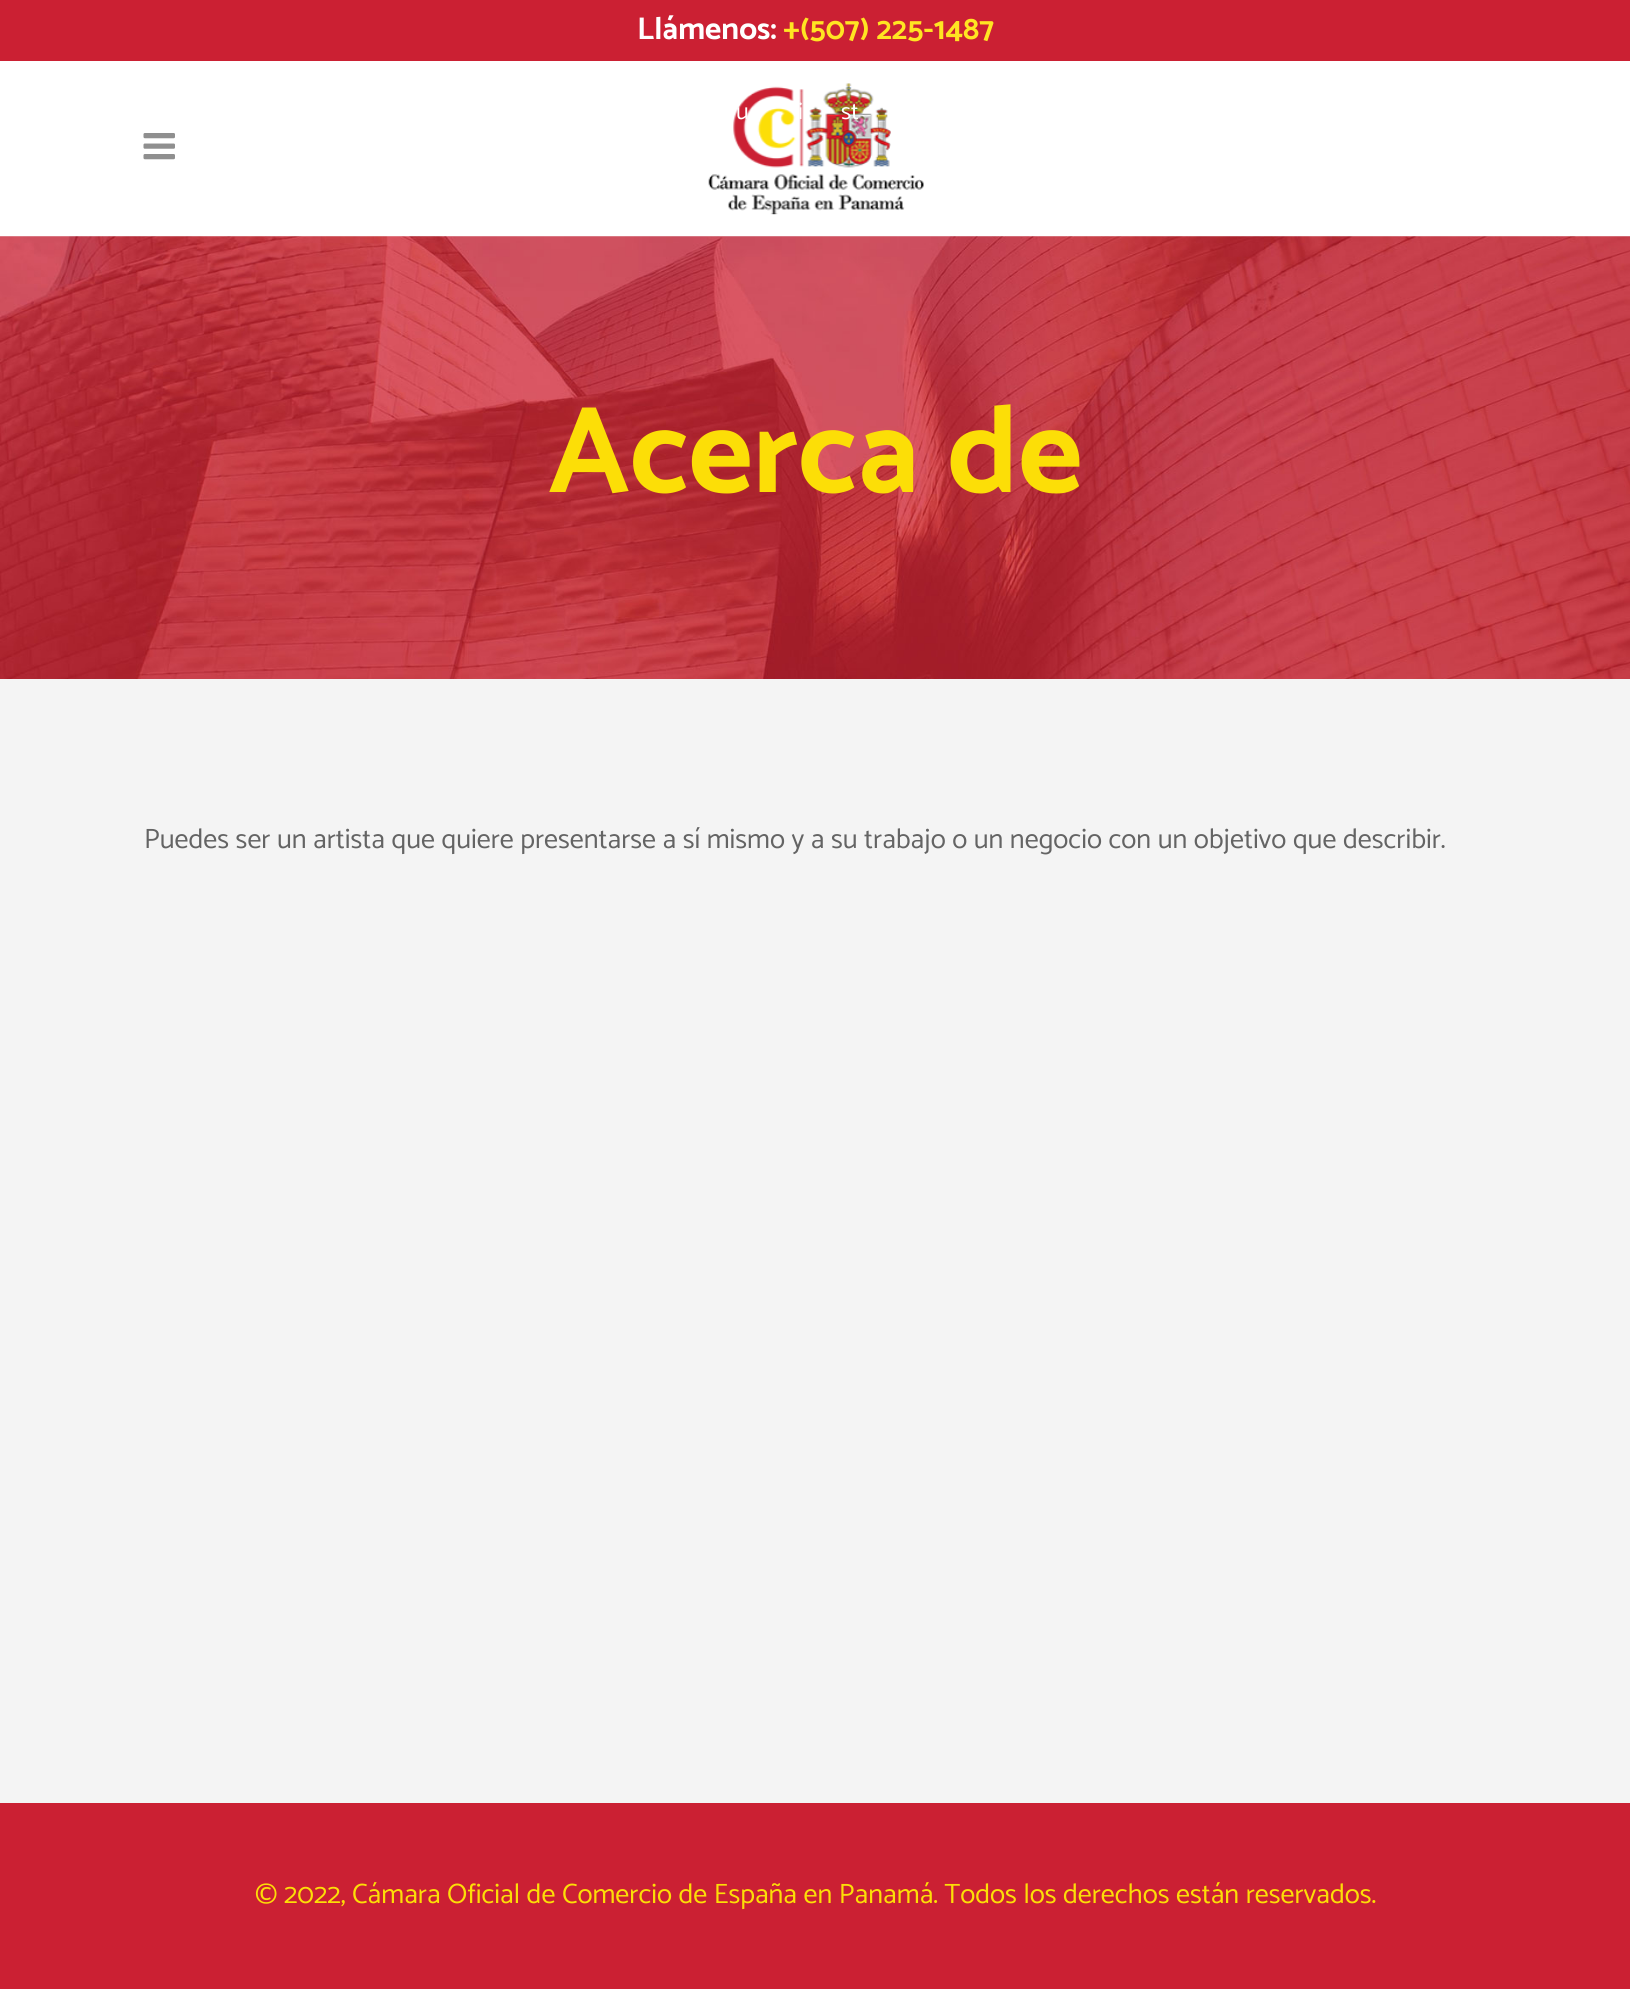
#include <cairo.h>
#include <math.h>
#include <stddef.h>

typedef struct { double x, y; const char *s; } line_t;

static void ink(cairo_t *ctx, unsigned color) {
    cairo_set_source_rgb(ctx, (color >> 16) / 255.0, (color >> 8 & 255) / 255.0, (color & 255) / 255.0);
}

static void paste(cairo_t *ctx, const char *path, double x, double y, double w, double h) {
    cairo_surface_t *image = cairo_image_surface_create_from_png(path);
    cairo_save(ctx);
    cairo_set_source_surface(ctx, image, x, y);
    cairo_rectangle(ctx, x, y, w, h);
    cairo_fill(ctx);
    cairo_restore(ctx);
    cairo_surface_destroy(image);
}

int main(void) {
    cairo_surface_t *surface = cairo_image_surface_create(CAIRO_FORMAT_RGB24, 1630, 1989);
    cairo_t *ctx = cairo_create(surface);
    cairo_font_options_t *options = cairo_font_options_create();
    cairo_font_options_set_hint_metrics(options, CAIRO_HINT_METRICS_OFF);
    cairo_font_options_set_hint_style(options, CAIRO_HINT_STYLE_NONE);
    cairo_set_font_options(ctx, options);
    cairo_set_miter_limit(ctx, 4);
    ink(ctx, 0xF4F4F4);
    cairo_paint(ctx);
    ink(ctx, 0xCB2033);
    cairo_rectangle(ctx, 0, 0, 1630, 61);
    cairo_fill(ctx);
    cairo_select_font_face(ctx, "Catamaran", CAIRO_FONT_SLANT_NORMAL, CAIRO_FONT_WEIGHT_BOLD);
    cairo_set_font_size(ctx, 31.5);
    ink(ctx, 0xFFFFFF);
    cairo_move_to(ctx, 637, 39);
    cairo_show_text(ctx, "Llámenos:");
    ink(ctx, 0xFFE522);
    cairo_move_to(ctx, 783, 39);
    cairo_show_text(ctx, "+(507) 225-1487");
    ink(ctx, 0xFFFFFF);
    cairo_rectangle(ctx, 0, 61, 1630, 175);
    cairo_fill(ctx);
    paste(ctx, "media/2.png", 708, 83, 216, 132);
    cairo_select_font_face(ctx, "Catamaran", CAIRO_FONT_SLANT_NORMAL, CAIRO_FONT_WEIGHT_NORMAL);
    cairo_set_font_size(ctx, 24);
    {
        static const line_t items[] = {
            {736, 119, "u"},
            {798, 119, "i"},
            {841, 119, "st"},
        };
        for (size_t i = 0; i < sizeof items / sizeof *items; i++) {
            cairo_move_to(ctx, items[i].x, items[i].y);
            cairo_show_text(ctx, items[i].s);
        }
    }
    paste(ctx, "media/1.png", 143, 133, 32, 27);
    paste(ctx, "media/3.png", 0, 236, 1630, 443);
    cairo_select_font_face(ctx, "Catamaran", CAIRO_FONT_SLANT_NORMAL, CAIRO_FONT_WEIGHT_BOLD);
    cairo_set_font_size(ctx, 124.25);
    ink(ctx, 0xFCDE07);
    cairo_move_to(ctx, 548, 492);
    cairo_show_text(ctx, "Acerca de");
    cairo_select_font_face(ctx, "Catamaran", CAIRO_FONT_SLANT_NORMAL, CAIRO_FONT_WEIGHT_NORMAL);
    cairo_set_font_size(ctx, 28);
    ink(ctx, 0x646464);
    cairo_move_to(ctx, 144, 848);
    cairo_show_text(ctx, "Puedes ser un artista que quiere presentarse a sí mismo y a su trabajo o un negocio con un objetivo que describir.");
    ink(ctx, 0xCB2033);
    cairo_rectangle(ctx, 0, 1803, 1630, 186);
    cairo_fill(ctx);
    ink(ctx, 0xFCDE07);
    cairo_move_to(ctx, 255, 1903);
    cairo_show_text(ctx, "© 2022, Cámara Oficial de Comercio de España en Panamá. Todos los derechos están reservados.");
    cairo_surface_write_to_png(surface, "image.png");
    cairo_font_options_destroy(options);
    cairo_destroy(ctx);
    cairo_surface_destroy(surface);
    return 0;
}
